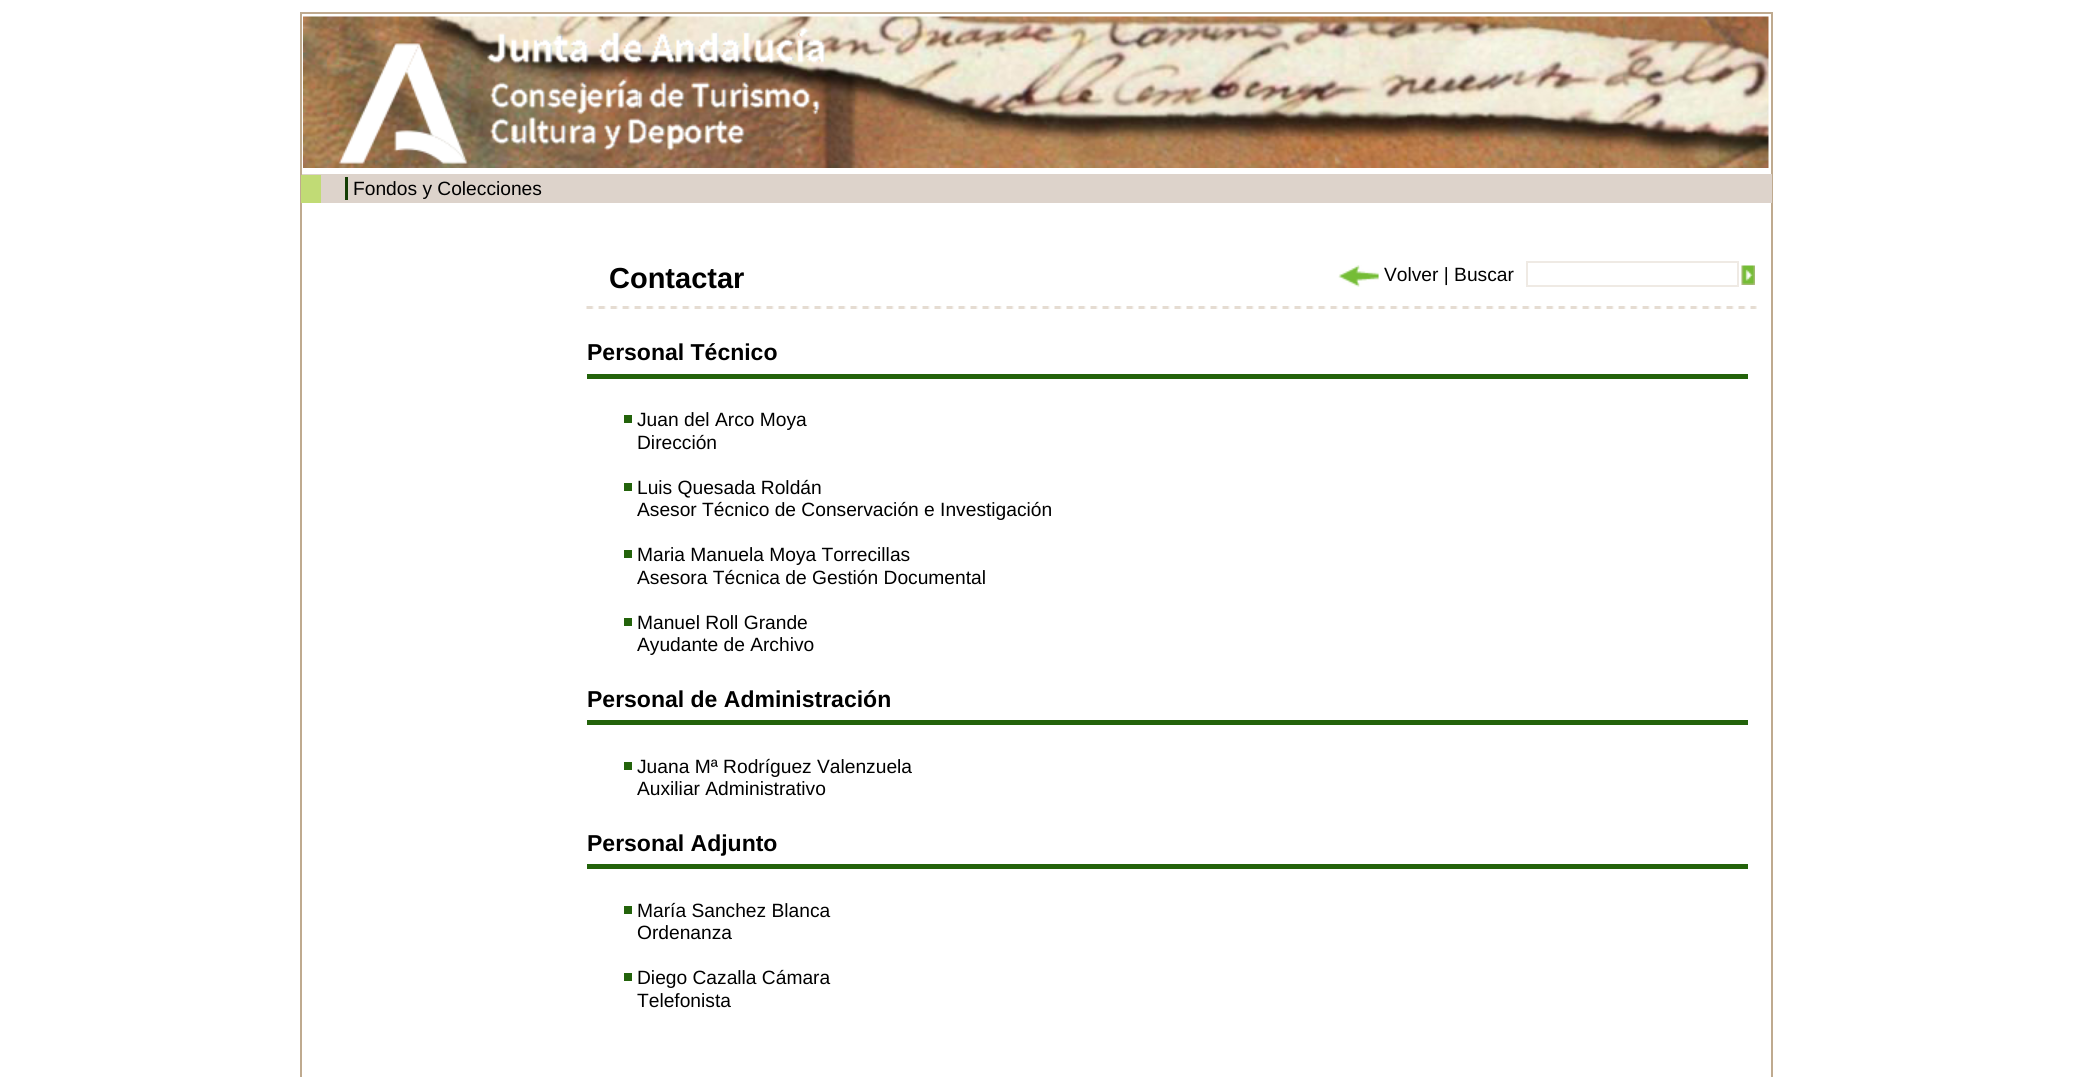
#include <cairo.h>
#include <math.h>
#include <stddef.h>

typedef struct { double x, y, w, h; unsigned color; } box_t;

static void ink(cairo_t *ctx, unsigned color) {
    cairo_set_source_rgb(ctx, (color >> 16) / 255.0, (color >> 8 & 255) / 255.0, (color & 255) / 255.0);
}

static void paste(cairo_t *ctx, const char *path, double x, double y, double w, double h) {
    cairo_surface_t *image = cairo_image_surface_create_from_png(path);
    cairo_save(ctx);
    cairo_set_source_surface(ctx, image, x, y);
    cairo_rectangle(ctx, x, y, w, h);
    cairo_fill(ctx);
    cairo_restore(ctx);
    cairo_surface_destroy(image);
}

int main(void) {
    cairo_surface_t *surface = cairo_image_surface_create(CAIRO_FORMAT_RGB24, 2073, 1077);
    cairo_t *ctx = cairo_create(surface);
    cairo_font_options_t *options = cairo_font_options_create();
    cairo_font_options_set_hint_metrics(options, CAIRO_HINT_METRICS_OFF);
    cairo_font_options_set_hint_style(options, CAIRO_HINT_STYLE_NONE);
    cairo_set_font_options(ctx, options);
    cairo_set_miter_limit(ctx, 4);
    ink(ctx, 0xFFFFFF);
    cairo_paint(ctx);
    cairo_rectangle(ctx, 301, 13, 1471, 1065);
    ink(ctx, 0xBFAA8F);
    cairo_stroke(ctx);
    paste(ctx, "media/1.png", 303, 16, 1466, 152);
    paste(ctx, "media/2.png", 338, 43, 130, 121);
    paste(ctx, "media/3.png", 487, 26, 339, 125);
    {
        static const box_t items[] = {
            {302, 174, 1470, 29, 0xDDD3CB},
            {301, 175, 20, 28, 0xC1DB75},
            {345, 177, 3, 23, 0x143D03},
        };
        for (size_t i = 0; i < sizeof items / sizeof *items; i++) {
            ink(ctx, items[i].color);
            cairo_rectangle(ctx, items[i].x, items[i].y, items[i].w, items[i].h);
            cairo_fill(ctx);
        }
    }
    cairo_select_font_face(ctx, "Liberation Sans", CAIRO_FONT_SLANT_NORMAL, CAIRO_FONT_WEIGHT_NORMAL);
    cairo_set_font_size(ctx, 19.2);
    ink(ctx, 0x000000);
    cairo_move_to(ctx, 353, 195);
    cairo_show_text(ctx, "Fondos y Colecciones");
    cairo_select_font_face(ctx, "Liberation Sans", CAIRO_FONT_SLANT_NORMAL, CAIRO_FONT_WEIGHT_BOLD);
    cairo_set_font_size(ctx, 29);
    cairo_move_to(ctx, 609, 288);
    cairo_show_text(ctx, "Contactar");
    paste(ctx, "media/4.png", 1338, 265, 41, 22);
    cairo_select_font_face(ctx, "Liberation Sans", CAIRO_FONT_SLANT_NORMAL, CAIRO_FONT_WEIGHT_NORMAL);
    cairo_set_font_size(ctx, 19.2);
    cairo_move_to(ctx, 1384, 281);
    cairo_show_text(ctx, "Volver | Buscar");
    cairo_rectangle(ctx, 1527, 262, 211, 24);
    ink(ctx, 0xEFEAE4);
    cairo_stroke(ctx);
    paste(ctx, "media/5.png", 1741, 265, 14, 20);
    paste(ctx, "media/6.png", 586, 306, 1171, 3);
    ink(ctx, 0x23630B);
    cairo_rectangle(ctx, 587, 374, 1161, 5);
    cairo_fill(ctx);
    cairo_select_font_face(ctx, "Liberation Sans", CAIRO_FONT_SLANT_NORMAL, CAIRO_FONT_WEIGHT_BOLD);
    cairo_set_font_size(ctx, 23);
    ink(ctx, 0x000000);
    cairo_move_to(ctx, 587, 360);
    cairo_show_text(ctx, "Personal Técnico");
    ink(ctx, 0x23630B);
    cairo_rectangle(ctx, 624, 415, 8, 8);
    cairo_fill(ctx);
    cairo_select_font_face(ctx, "Liberation Sans", CAIRO_FONT_SLANT_NORMAL, CAIRO_FONT_WEIGHT_NORMAL);
    cairo_set_font_size(ctx, 19.2);
    ink(ctx, 0x000000);
    cairo_move_to(ctx, 637, 426);
    cairo_show_text(ctx, "Juan del Arco Moya");
    cairo_move_to(ctx, 637, 449);
    cairo_show_text(ctx, "Dirección");
    ink(ctx, 0x23630B);
    cairo_rectangle(ctx, 624, 483, 8, 8);
    cairo_fill(ctx);
    ink(ctx, 0x000000);
    cairo_move_to(ctx, 637, 494);
    cairo_show_text(ctx, "Luis Quesada Roldán");
    cairo_move_to(ctx, 637, 516);
    cairo_show_text(ctx, "Asesor Técnico de Conservación e Investigación");
    ink(ctx, 0x23630B);
    cairo_rectangle(ctx, 624, 550, 8, 8);
    cairo_fill(ctx);
    ink(ctx, 0x000000);
    cairo_move_to(ctx, 637, 561);
    cairo_show_text(ctx, "Maria Manuela Moya Torrecillas");
    cairo_move_to(ctx, 637, 584);
    cairo_show_text(ctx, "Asesora Técnica de Gestión Documental");
    ink(ctx, 0x23630B);
    cairo_rectangle(ctx, 624, 618, 8, 8);
    cairo_fill(ctx);
    ink(ctx, 0x000000);
    cairo_move_to(ctx, 637, 629);
    cairo_show_text(ctx, "Manuel Roll Grande");
    cairo_move_to(ctx, 637, 651);
    cairo_show_text(ctx, "Ayudante de Archivo");
    ink(ctx, 0x23630B);
    cairo_rectangle(ctx, 587, 720, 1161, 5);
    cairo_fill(ctx);
    cairo_select_font_face(ctx, "Liberation Sans", CAIRO_FONT_SLANT_NORMAL, CAIRO_FONT_WEIGHT_BOLD);
    cairo_set_font_size(ctx, 23);
    ink(ctx, 0x000000);
    cairo_move_to(ctx, 587, 707);
    cairo_show_text(ctx, "Personal de Administración");
    ink(ctx, 0x23630B);
    cairo_rectangle(ctx, 624, 762, 8, 8);
    cairo_fill(ctx);
    cairo_select_font_face(ctx, "Liberation Sans", CAIRO_FONT_SLANT_NORMAL, CAIRO_FONT_WEIGHT_NORMAL);
    cairo_set_font_size(ctx, 19.2);
    ink(ctx, 0x000000);
    cairo_move_to(ctx, 637, 773);
    cairo_show_text(ctx, "Juana Mª Rodríguez Valenzuela");
    cairo_move_to(ctx, 637, 795);
    cairo_show_text(ctx, "Auxiliar Administrativo");
    ink(ctx, 0x23630B);
    cairo_rectangle(ctx, 587, 864, 1161, 5);
    cairo_fill(ctx);
    cairo_select_font_face(ctx, "Liberation Sans", CAIRO_FONT_SLANT_NORMAL, CAIRO_FONT_WEIGHT_BOLD);
    cairo_set_font_size(ctx, 23);
    ink(ctx, 0x000000);
    cairo_move_to(ctx, 587, 851);
    cairo_show_text(ctx, "Personal Adjunto");
    ink(ctx, 0x23630B);
    cairo_rectangle(ctx, 624, 906, 8, 8);
    cairo_fill(ctx);
    cairo_select_font_face(ctx, "Liberation Sans", CAIRO_FONT_SLANT_NORMAL, CAIRO_FONT_WEIGHT_NORMAL);
    cairo_set_font_size(ctx, 19.2);
    ink(ctx, 0x000000);
    cairo_move_to(ctx, 637, 917);
    cairo_show_text(ctx, "María Sanchez Blanca");
    cairo_move_to(ctx, 637, 939);
    cairo_show_text(ctx, "Ordenanza");
    ink(ctx, 0x23630B);
    cairo_rectangle(ctx, 624, 973, 8, 8);
    cairo_fill(ctx);
    ink(ctx, 0x000000);
    cairo_move_to(ctx, 637, 984);
    cairo_show_text(ctx, "Diego Cazalla Cámara");
    cairo_move_to(ctx, 637, 1007);
    cairo_show_text(ctx, "Telefonista");
    cairo_surface_write_to_png(surface, "image.png");
    cairo_font_options_destroy(options);
    cairo_destroy(ctx);
    cairo_surface_destroy(surface);
    return 0;
}
